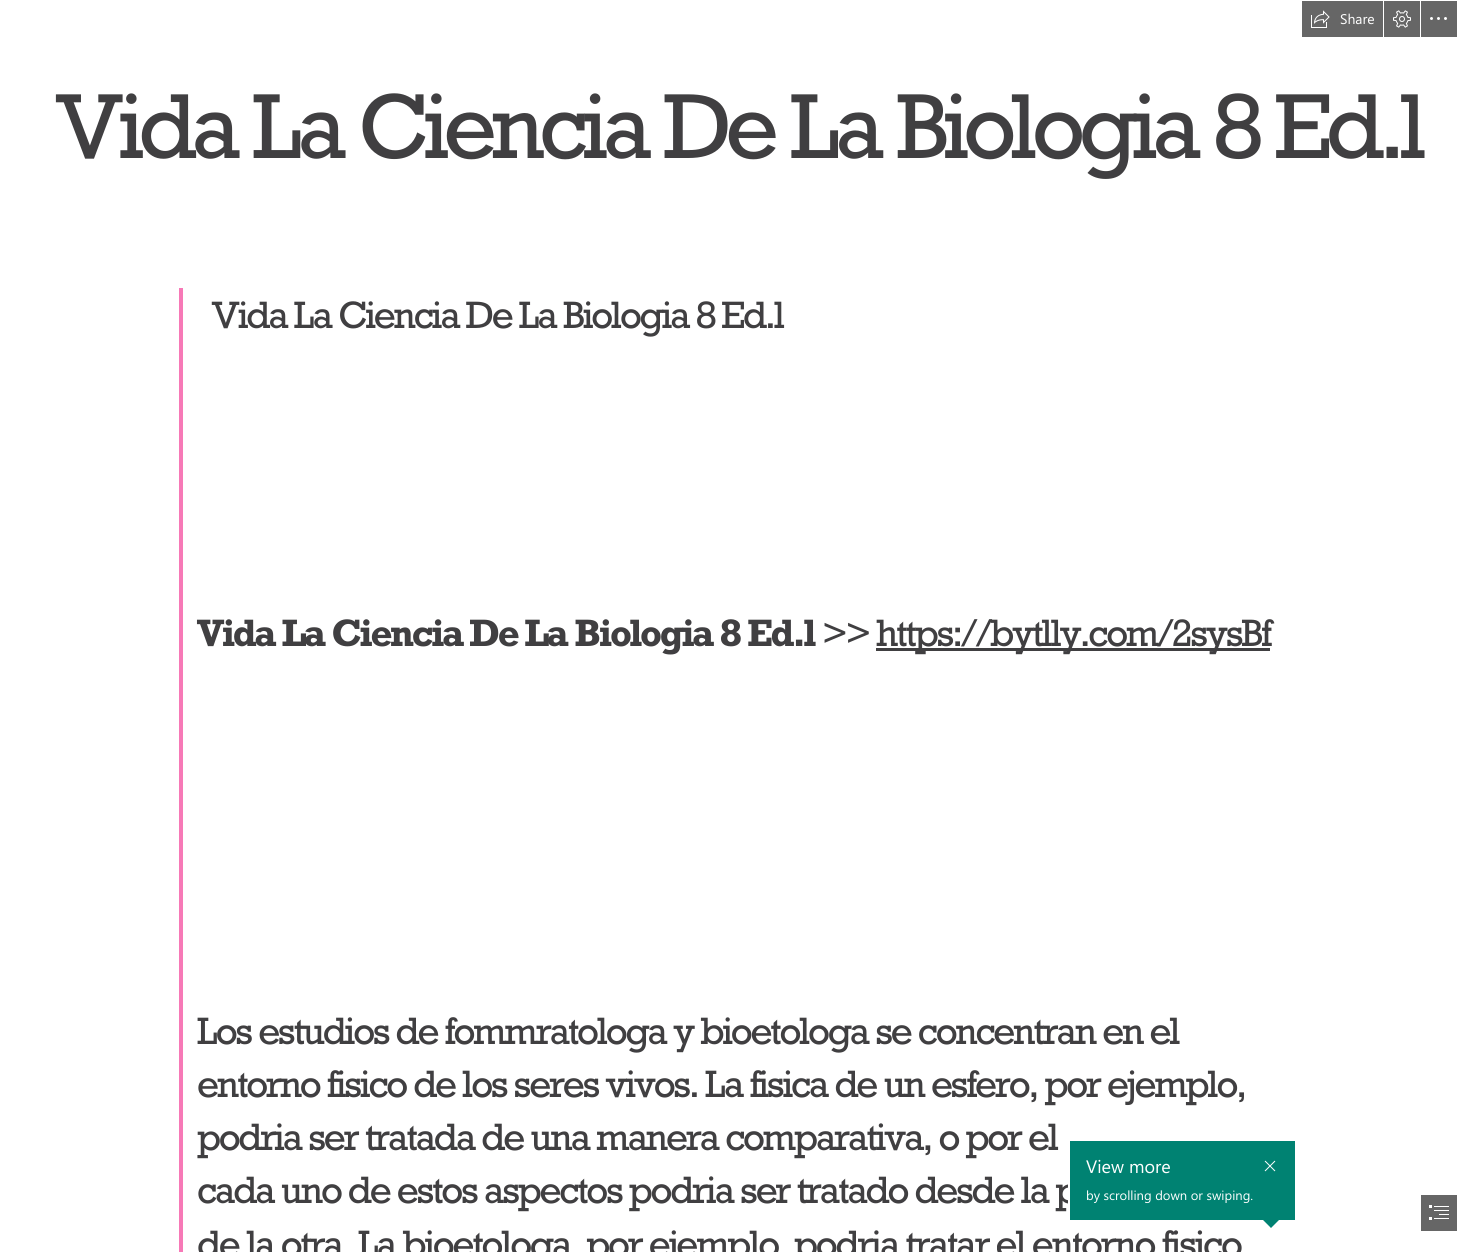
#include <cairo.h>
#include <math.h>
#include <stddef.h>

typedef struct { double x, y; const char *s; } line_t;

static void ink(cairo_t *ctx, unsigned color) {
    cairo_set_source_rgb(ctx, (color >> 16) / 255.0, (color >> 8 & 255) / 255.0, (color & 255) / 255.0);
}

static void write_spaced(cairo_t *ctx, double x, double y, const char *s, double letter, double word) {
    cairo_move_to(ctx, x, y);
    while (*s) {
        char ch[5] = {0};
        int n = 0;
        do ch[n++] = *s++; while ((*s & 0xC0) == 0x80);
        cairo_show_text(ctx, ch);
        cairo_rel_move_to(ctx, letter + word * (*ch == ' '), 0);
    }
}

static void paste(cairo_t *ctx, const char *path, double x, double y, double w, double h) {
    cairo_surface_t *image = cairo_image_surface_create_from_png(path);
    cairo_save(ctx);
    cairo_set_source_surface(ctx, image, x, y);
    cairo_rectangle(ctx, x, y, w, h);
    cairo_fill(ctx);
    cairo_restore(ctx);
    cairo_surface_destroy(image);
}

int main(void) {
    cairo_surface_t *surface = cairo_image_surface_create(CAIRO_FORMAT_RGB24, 1477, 1252);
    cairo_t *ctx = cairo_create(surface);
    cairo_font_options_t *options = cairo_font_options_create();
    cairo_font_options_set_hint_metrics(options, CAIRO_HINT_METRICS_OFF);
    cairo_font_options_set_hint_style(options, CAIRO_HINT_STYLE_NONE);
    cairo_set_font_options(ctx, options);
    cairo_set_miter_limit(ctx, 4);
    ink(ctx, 0xFFFFFF);
    cairo_paint(ctx);
    ink(ctx, 0x666666);
    cairo_rectangle(ctx, 1302, 1, 81, 36);
    cairo_fill(ctx);
    paste(ctx, "media/1.png", 1311, 10, 19, 18);
    cairo_select_font_face(ctx, "Segoe UI", CAIRO_FONT_SLANT_NORMAL, CAIRO_FONT_WEIGHT_NORMAL);
    cairo_set_font_size(ctx, 14);
    ink(ctx, 0xFFFFFF);
    cairo_move_to(ctx, 1340, 24);
    cairo_show_text(ctx, "Share");
    ink(ctx, 0x666666);
    cairo_rectangle(ctx, 1384, 1, 36, 36);
    cairo_fill(ctx);
    paste(ctx, "media/2.png", 1393, 10, 18, 18);
    cairo_rectangle(ctx, 1421, 1, 36, 36);
    cairo_fill(ctx);
    paste(ctx, "media/3.png", 1430, 17, 17, 3);
    cairo_select_font_face(ctx, "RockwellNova", CAIRO_FONT_SLANT_NORMAL, CAIRO_FONT_WEIGHT_NORMAL);
    cairo_set_font_size(ctx, 86.5);
    ink(ctx, 0x403F41);
    write_spaced(ctx, 54, 158, "Vida La Ciencia De La Biologia 8 Ed.l", -6.2, 0);
    ink(ctx, 0xF779B7);
    cairo_rectangle(ctx, 179, 288, 4, 964);
    cairo_fill(ctx);
    cairo_set_font_size(ctx, 35.75);
    ink(ctx, 0x403F41);
    write_spaced(ctx, 211, 328, "Vida La Ciencia De La Biologia 8 Ed.l", -2.38, 0);
    cairo_select_font_face(ctx, "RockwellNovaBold", CAIRO_FONT_SLANT_NORMAL, CAIRO_FONT_WEIGHT_BOLD);
    write_spaced(ctx, 197, 646, "Vida La Ciencia De La Biologia 8 Ed.l", -2.38, 0);
    cairo_select_font_face(ctx, "RockwellNova", CAIRO_FONT_SLANT_NORMAL, CAIRO_FONT_WEIGHT_NORMAL);
    write_spaced(ctx, 822, 646, ">>", -2.38, 0);
    cairo_rectangle(ctx, 876, 648, 394, 3);
    cairo_fill(ctx);
    {
        static const line_t items[] = {
            {876, 646, "https://bytlly.com/2sysBf"},
            {197, 1044, "Los estudios de fommratologa y bioetologa se concentran en el"},
            {197, 1097, "entorno fisico de los seres vivos. La fisica de un esfero, por ejemplo,"},
            {197, 1150, "podria ser tratada de una manera comparativa, o por el"},
            {197, 1203, "cada uno de estos aspectos podria ser tratado desde la p"},
            {197, 1257, "de la otra. La bioetologa, por ejemplo, podria tratar el entorno fisico"},
        };
        for (size_t i = 0; i < sizeof items / sizeof *items; i++) {
            write_spaced(ctx, items[i].x, items[i].y, items[i].s, -2.38, 0);
        }
    }
    ink(ctx, 0x008272);
    cairo_rectangle(ctx, 1069, 1140, 227, 81);
    cairo_fill_preserve(ctx);
    ink(ctx, 0xFFFFFF);
    cairo_stroke(ctx);
    cairo_select_font_face(ctx, "Segoe UI", CAIRO_FONT_SLANT_NORMAL, CAIRO_FONT_WEIGHT_NORMAL);
    cairo_set_font_size(ctx, 18);
    cairo_move_to(ctx, 1086, 1173);
    cairo_show_text(ctx, "View more");
    cairo_set_font_size(ctx, 13);
    cairo_move_to(ctx, 1086, 1200);
    cairo_show_text(ctx, "by scrolling down or swiping.");
    paste(ctx, "media/4.png", 1264, 1160, 12, 12);
    ink(ctx, 0x008272);
    cairo_new_path(ctx);
    cairo_move_to(ctx, 1263, 1220);
    cairo_line_to(ctx, 1279, 1220);
    cairo_line_to(ctx, 1271, 1228);
    cairo_close_path(ctx);
    cairo_fill(ctx);
    ink(ctx, 0x666666);
    cairo_rectangle(ctx, 1421, 1195, 36, 36);
    cairo_fill(ctx);
    paste(ctx, "media/5.png", 1429, 1205, 20, 15);
    cairo_surface_write_to_png(surface, "image.png");
    cairo_font_options_destroy(options);
    cairo_destroy(ctx);
    cairo_surface_destroy(surface);
    return 0;
}
